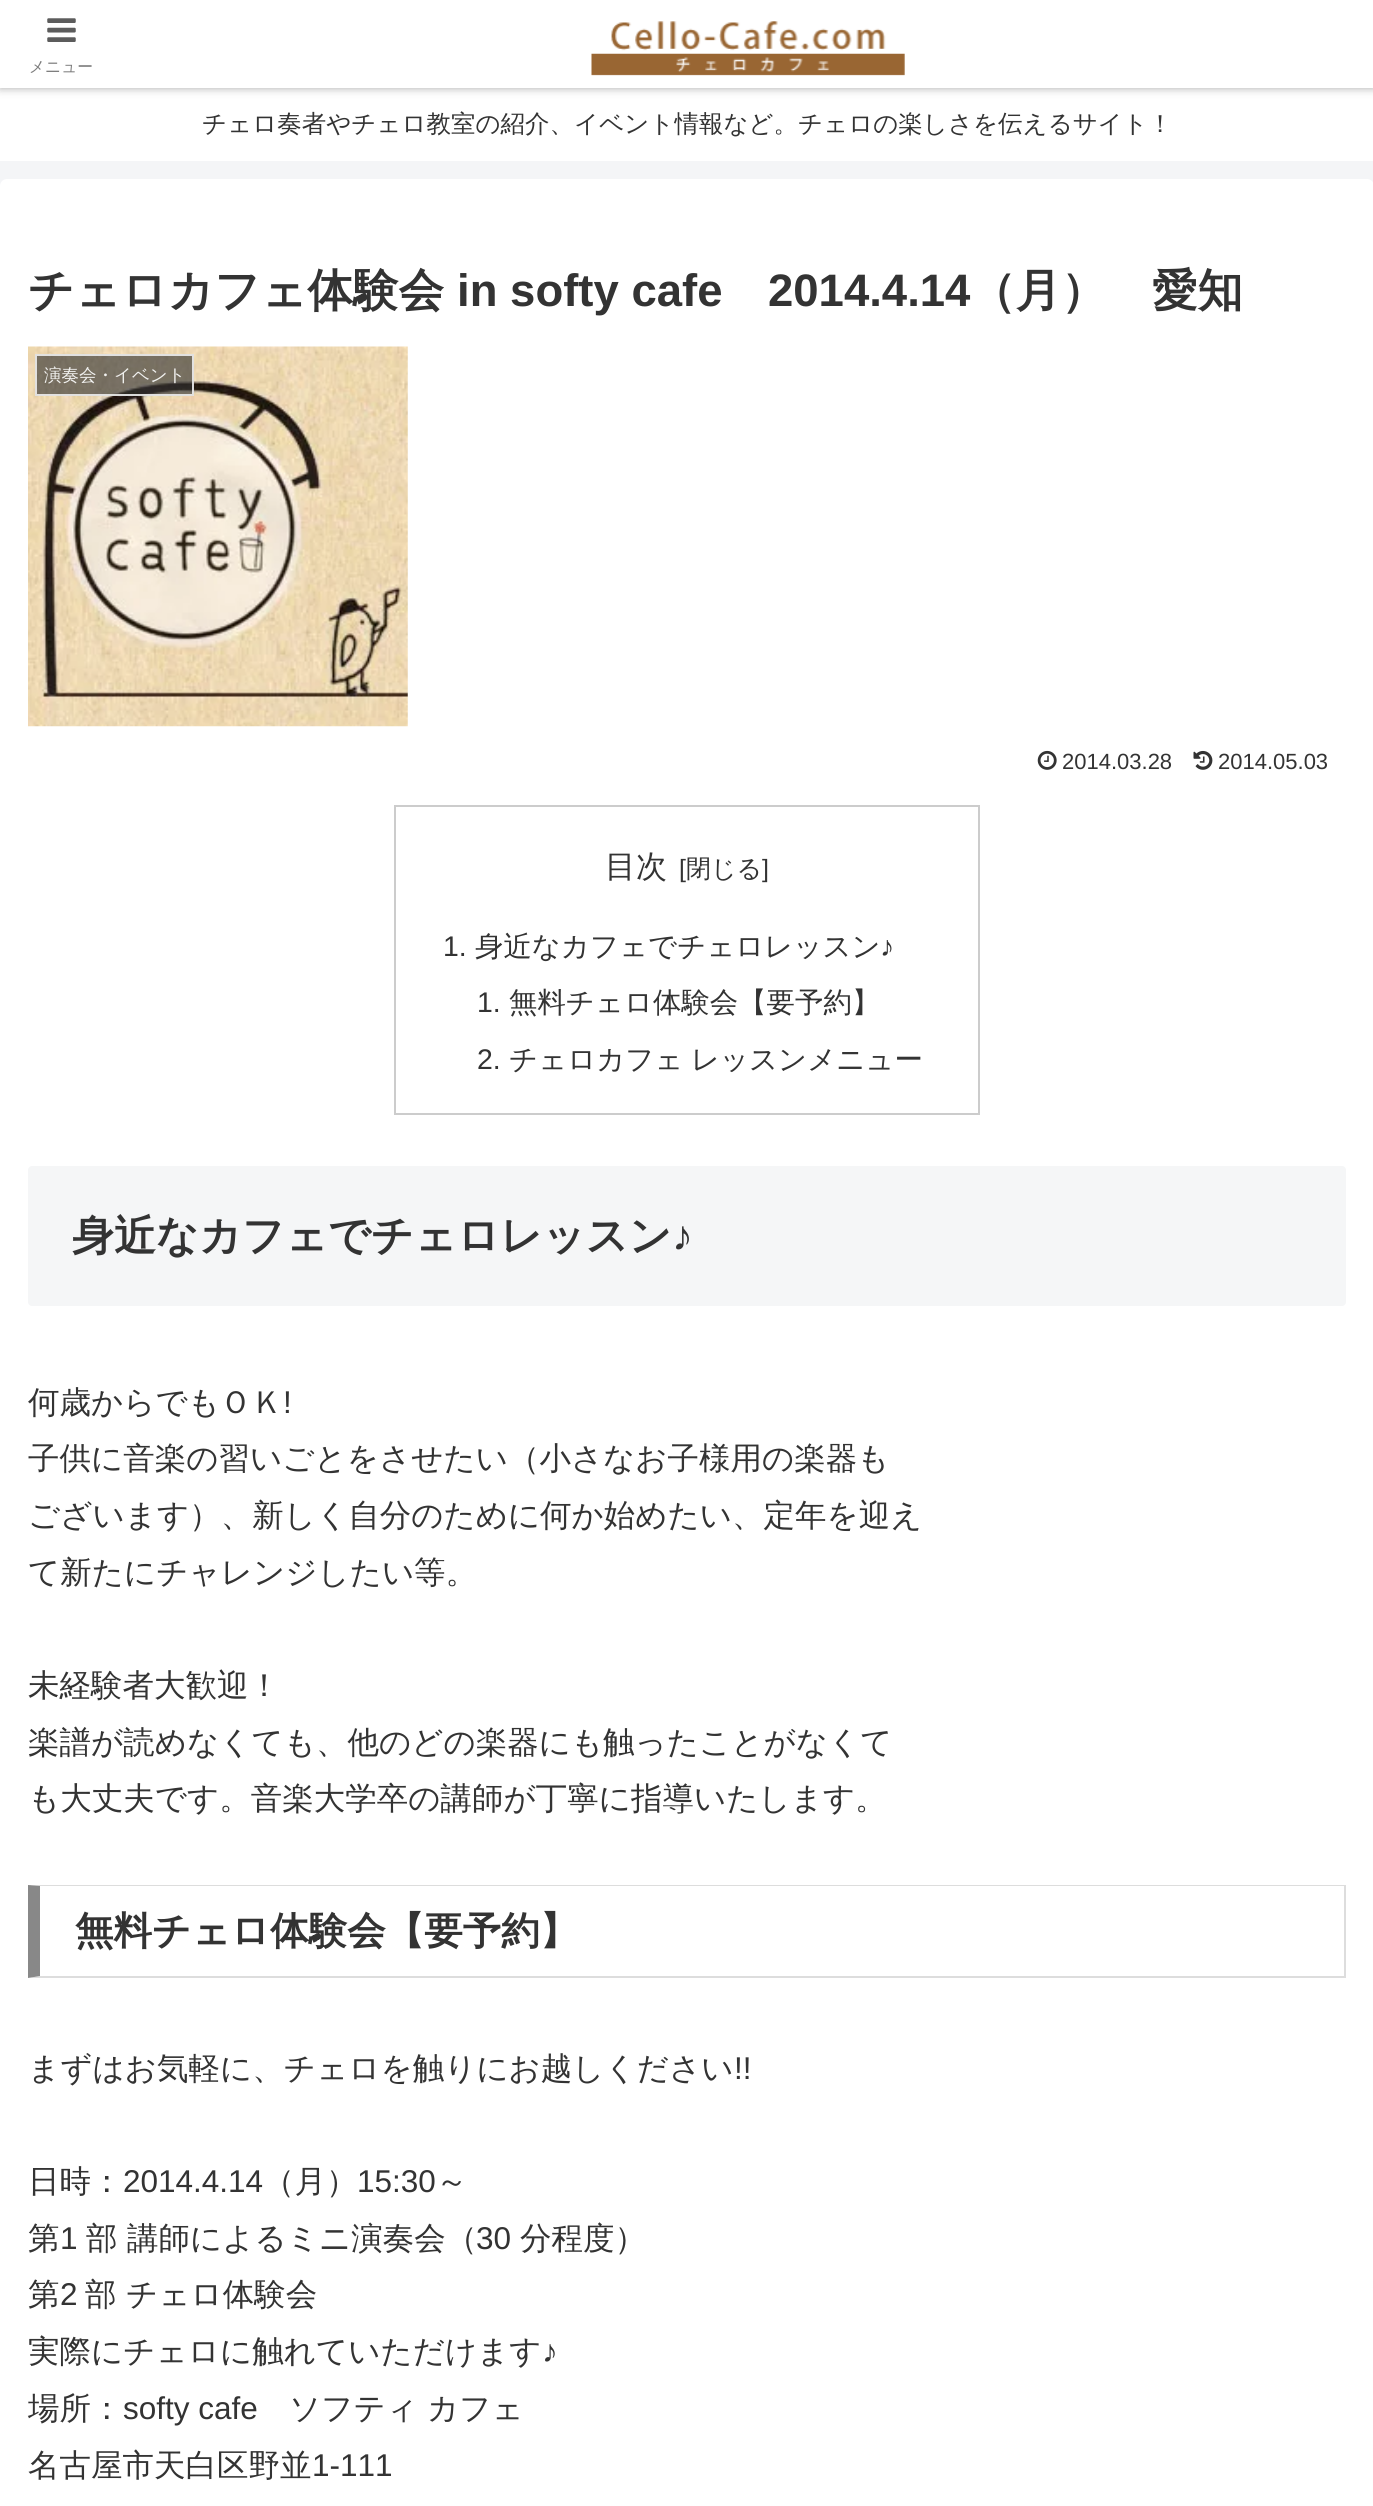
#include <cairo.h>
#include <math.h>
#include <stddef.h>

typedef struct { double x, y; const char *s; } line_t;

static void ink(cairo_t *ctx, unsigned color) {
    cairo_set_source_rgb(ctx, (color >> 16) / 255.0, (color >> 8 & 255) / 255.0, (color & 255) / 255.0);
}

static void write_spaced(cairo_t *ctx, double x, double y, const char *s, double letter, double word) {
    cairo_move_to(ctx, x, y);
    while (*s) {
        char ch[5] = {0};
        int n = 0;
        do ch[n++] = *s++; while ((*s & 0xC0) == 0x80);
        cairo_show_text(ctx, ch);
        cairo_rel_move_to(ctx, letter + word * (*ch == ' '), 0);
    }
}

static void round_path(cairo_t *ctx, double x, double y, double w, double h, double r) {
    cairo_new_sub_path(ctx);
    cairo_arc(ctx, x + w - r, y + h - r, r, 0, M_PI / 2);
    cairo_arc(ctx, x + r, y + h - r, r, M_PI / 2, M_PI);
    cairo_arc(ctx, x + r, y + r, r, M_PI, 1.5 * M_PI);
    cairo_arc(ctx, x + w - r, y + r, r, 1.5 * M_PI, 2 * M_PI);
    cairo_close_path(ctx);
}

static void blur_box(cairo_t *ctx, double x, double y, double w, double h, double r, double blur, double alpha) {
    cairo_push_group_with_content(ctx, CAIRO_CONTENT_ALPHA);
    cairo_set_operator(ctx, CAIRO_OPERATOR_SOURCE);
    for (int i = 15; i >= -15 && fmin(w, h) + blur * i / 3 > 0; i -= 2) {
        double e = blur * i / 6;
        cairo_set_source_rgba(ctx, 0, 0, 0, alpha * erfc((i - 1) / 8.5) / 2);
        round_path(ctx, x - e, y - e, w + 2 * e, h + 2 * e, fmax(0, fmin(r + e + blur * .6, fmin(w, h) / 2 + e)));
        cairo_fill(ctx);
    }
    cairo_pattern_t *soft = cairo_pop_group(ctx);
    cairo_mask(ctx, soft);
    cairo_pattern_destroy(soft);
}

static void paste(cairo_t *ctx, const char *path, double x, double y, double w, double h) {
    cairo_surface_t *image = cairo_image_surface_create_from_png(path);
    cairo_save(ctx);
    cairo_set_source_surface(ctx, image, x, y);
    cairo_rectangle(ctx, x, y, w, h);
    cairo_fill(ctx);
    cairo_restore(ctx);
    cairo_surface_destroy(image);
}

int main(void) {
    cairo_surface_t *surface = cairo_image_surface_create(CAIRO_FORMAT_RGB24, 1373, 2506);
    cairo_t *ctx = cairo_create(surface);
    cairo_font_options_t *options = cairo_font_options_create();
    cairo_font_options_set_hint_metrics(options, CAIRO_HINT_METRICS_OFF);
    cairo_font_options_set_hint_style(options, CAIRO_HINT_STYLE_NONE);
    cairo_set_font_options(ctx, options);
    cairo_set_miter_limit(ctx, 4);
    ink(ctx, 0xF4F5F7);
    cairo_paint(ctx);
    ink(ctx, 0xFFFFFF);
    cairo_rectangle(ctx, 0, 88, 1373, 73);
    cairo_fill(ctx);
    ink(ctx, 0xA9A9A9);
    blur_box(ctx, 0, 0, 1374, 88, 0, 4.5, 1);
    ink(ctx, 0xFFFFFF);
    cairo_rectangle(ctx, 0, 0, 1373, 88);
    cairo_fill(ctx);
    paste(ctx, "media/1.png", 47, 18, 29, 24);
    cairo_select_font_face(ctx, "WenQuanYi Zen Hei Medium", CAIRO_FONT_SLANT_NORMAL, CAIRO_FONT_WEIGHT_NORMAL);
    cairo_set_font_size(ctx, 15.75);
    ink(ctx, 0x7C7C7C);
    cairo_move_to(ctx, 29, 72);
    cairo_show_text(ctx, "メニュー");
    paste(ctx, "media/2.png", 591, 21, 314, 55);
    cairo_set_font_size(ctx, 24.5);
    ink(ctx, 0x333333);
    cairo_move_to(ctx, 202, 132);
    cairo_show_text(ctx, "チェロ奏者やチェロ教室の紹介、イベント情報など。チェロの楽しさを伝えるサイト！");
    ink(ctx, 0xFFFFFF);
    round_path(ctx, 0, 179, 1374, 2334, 7);
    cairo_fill(ctx);
    cairo_select_font_face(ctx, "WenQuanYi Zen Hei", CAIRO_FONT_SLANT_NORMAL, CAIRO_FONT_WEIGHT_BOLD);
    cairo_set_font_size(ctx, 45.5);
    ink(ctx, 0x333333);
    cairo_move_to(ctx, 28, 306);
    cairo_show_text(ctx, "チェロカフェ体験会");
    cairo_select_font_face(ctx, "Liberation Sans", CAIRO_FONT_SLANT_NORMAL, CAIRO_FONT_WEIGHT_BOLD);
    cairo_move_to(ctx, 457, 306);
    cairo_show_text(ctx, "in softy cafe");
    cairo_move_to(ctx, 768, 306);
    cairo_show_text(ctx, "2014.4.14");
    cairo_select_font_face(ctx, "WenQuanYi Zen Hei", CAIRO_FONT_SLANT_NORMAL, CAIRO_FONT_WEIGHT_BOLD);
    cairo_move_to(ctx, 970, 306);
    cairo_show_text(ctx, "（月）　愛知");
    paste(ctx, "media/3.png", 28, 346, 380, 381);
    cairo_set_source_rgba(ctx, 0.2, 0.2, 0.2, 0.63);
    cairo_rectangle(ctx, 35, 354, 159, 42);
    cairo_fill(ctx);
    cairo_rectangle(ctx, 36, 355, 157, 40);
    cairo_set_source_rgba(ctx, 0.933, 0.933, 0.933, 0.9);
    cairo_stroke(ctx);
    cairo_select_font_face(ctx, "WenQuanYi Zen Hei Medium", CAIRO_FONT_SLANT_NORMAL, CAIRO_FONT_WEIGHT_NORMAL);
    cairo_set_font_size(ctx, 17.5);
    ink(ctx, 0xF1F1EF);
    cairo_move_to(ctx, 44, 381);
    cairo_show_text(ctx, "演奏会・イベント");
    paste(ctx, "media/4.png", 1037, 750, 20, 20);
    cairo_select_font_face(ctx, "Liberation Sans", CAIRO_FONT_SLANT_NORMAL, CAIRO_FONT_WEIGHT_NORMAL);
    cairo_set_font_size(ctx, 22);
    ink(ctx, 0x333333);
    cairo_move_to(ctx, 1062, 769);
    cairo_show_text(ctx, "2014.03.28");
    paste(ctx, "media/5.png", 1193, 750, 20, 20);
    cairo_move_to(ctx, 1218, 769);
    cairo_show_text(ctx, "2014.05.03");
    cairo_rectangle(ctx, 395, 806, 584, 308);
    ink(ctx, 0xCCCCCC);
    cairo_stroke(ctx);
    cairo_select_font_face(ctx, "WenQuanYi Zen Hei Medium", CAIRO_FONT_SLANT_NORMAL, CAIRO_FONT_WEIGHT_NORMAL);
    cairo_set_font_size(ctx, 31);
    ink(ctx, 0x333333);
    cairo_move_to(ctx, 605, 877);
    cairo_show_text(ctx, "目次");
    cairo_select_font_face(ctx, "Liberation Sans", CAIRO_FONT_SLANT_NORMAL, CAIRO_FONT_WEIGHT_NORMAL);
    cairo_set_font_size(ctx, 25);
    cairo_move_to(ctx, 679, 877);
    cairo_show_text(ctx, "[");
    cairo_select_font_face(ctx, "WenQuanYi Zen Hei Medium", CAIRO_FONT_SLANT_NORMAL, CAIRO_FONT_WEIGHT_NORMAL);
    cairo_move_to(ctx, 686, 877);
    cairo_show_text(ctx, "閉じる");
    cairo_select_font_face(ctx, "Liberation Sans", CAIRO_FONT_SLANT_NORMAL, CAIRO_FONT_WEIGHT_NORMAL);
    cairo_move_to(ctx, 762, 877);
    cairo_show_text(ctx, "]");
    cairo_set_font_size(ctx, 28.4);
    cairo_move_to(ctx, 443, 956);
    cairo_show_text(ctx, "1.");
    cairo_select_font_face(ctx, "WenQuanYi Zen Hei Medium", CAIRO_FONT_SLANT_NORMAL, CAIRO_FONT_WEIGHT_NORMAL);
    cairo_move_to(ctx, 475, 956);
    cairo_show_text(ctx, "身近なカフェでチェロレッスン");
    cairo_select_font_face(ctx, "Liberation Sans", CAIRO_FONT_SLANT_NORMAL, CAIRO_FONT_WEIGHT_NORMAL);
    cairo_move_to(ctx, 880, 956);
    cairo_show_text(ctx, "♪");
    cairo_move_to(ctx, 477, 1012);
    cairo_show_text(ctx, "1.");
    cairo_select_font_face(ctx, "WenQuanYi Zen Hei Medium", CAIRO_FONT_SLANT_NORMAL, CAIRO_FONT_WEIGHT_NORMAL);
    cairo_move_to(ctx, 509, 1012);
    cairo_show_text(ctx, "無料チェロ体験会【要予約】");
    cairo_select_font_face(ctx, "Liberation Sans", CAIRO_FONT_SLANT_NORMAL, CAIRO_FONT_WEIGHT_NORMAL);
    cairo_move_to(ctx, 477, 1069);
    cairo_show_text(ctx, "2.");
    cairo_select_font_face(ctx, "WenQuanYi Zen Hei Medium", CAIRO_FONT_SLANT_NORMAL, CAIRO_FONT_WEIGHT_NORMAL);
    write_spaced(ctx, 509, 1069, "チェロカフェ レッスンメニュー", 0, -1);
    ink(ctx, 0xF5F6F7);
    round_path(ctx, 28, 1166, 1318, 140, 4);
    cairo_fill(ctx);
    cairo_select_font_face(ctx, "WenQuanYi Zen Hei", CAIRO_FONT_SLANT_NORMAL, CAIRO_FONT_WEIGHT_BOLD);
    cairo_set_font_size(ctx, 42);
    ink(ctx, 0x333333);
    cairo_move_to(ctx, 72, 1250);
    cairo_show_text(ctx, "身近なカフェでチェロレッスン");
    cairo_select_font_face(ctx, "Liberation Sans", CAIRO_FONT_SLANT_NORMAL, CAIRO_FONT_WEIGHT_BOLD);
    cairo_move_to(ctx, 672, 1250);
    cairo_show_text(ctx, "♪");
    cairo_select_font_face(ctx, "WenQuanYi Zen Hei Medium", CAIRO_FONT_SLANT_NORMAL, CAIRO_FONT_WEIGHT_NORMAL);
    cairo_set_font_size(ctx, 31.5);
    cairo_move_to(ctx, 28, 1413);
    cairo_show_text(ctx, "何歳からでもＯＫ");
    cairo_select_font_face(ctx, "Liberation Sans", CAIRO_FONT_SLANT_NORMAL, CAIRO_FONT_WEIGHT_NORMAL);
    cairo_move_to(ctx, 283, 1413);
    cairo_show_text(ctx, "!");
    cairo_select_font_face(ctx, "WenQuanYi Zen Hei Medium", CAIRO_FONT_SLANT_NORMAL, CAIRO_FONT_WEIGHT_NORMAL);
    {
        static const line_t items[] = {
            {28, 1469, "子供に音楽の習いごとをさせたい（小さなお子様用の楽器も"},
            {28, 1526, "ございます）、新しく自分のために何か始めたい、定年を迎え"},
            {28, 1583, "て新たにチャレンジしたい等。"},
            {28, 1696, "未経験者大歓迎！"},
            {28, 1753, "楽譜が読めなくても、他のどの楽器にも触ったことがなくて"},
            {28, 1809, "も大丈夫です。音楽大学卒の講師が丁寧に指導いたします。"},
        };
        for (size_t i = 0; i < sizeof items / sizeof *items; i++) {
            cairo_move_to(ctx, items[i].x, items[i].y);
            cairo_show_text(ctx, items[i].s);
        }
    }
    ink(ctx, 0xDDDDDD);
    cairo_new_path(ctx);
    cairo_move_to(ctx, 28, 1885);
    cairo_line_to(ctx, 1346, 1885);
    cairo_line_to(ctx, 1344, 1886);
    cairo_line_to(ctx, 40, 1886);
    cairo_close_path(ctx);
    cairo_fill(ctx);
    cairo_rectangle(ctx, 1344, 1885, 2, 93);
    cairo_fill(ctx);
    cairo_new_path(ctx);
    cairo_move_to(ctx, 1346, 1978);
    cairo_line_to(ctx, 28, 1978);
    cairo_line_to(ctx, 40, 1976);
    cairo_line_to(ctx, 1344, 1976);
    cairo_close_path(ctx);
    cairo_fill(ctx);
    ink(ctx, 0x888888);
    cairo_new_path(ctx);
    cairo_move_to(ctx, 28, 1978);
    cairo_line_to(ctx, 28, 1885);
    cairo_line_to(ctx, 40, 1886);
    cairo_line_to(ctx, 40, 1976);
    cairo_close_path(ctx);
    cairo_fill(ctx);
    cairo_select_font_face(ctx, "WenQuanYi Zen Hei", CAIRO_FONT_SLANT_NORMAL, CAIRO_FONT_WEIGHT_BOLD);
    cairo_set_font_size(ctx, 38.5);
    ink(ctx, 0x333333);
    cairo_move_to(ctx, 75, 1944);
    cairo_show_text(ctx, "無料チェロ体験会【要予約】");
    cairo_select_font_face(ctx, "WenQuanYi Zen Hei Medium", CAIRO_FONT_SLANT_NORMAL, CAIRO_FONT_WEIGHT_NORMAL);
    cairo_set_font_size(ctx, 31.5);
    cairo_move_to(ctx, 28, 2079);
    cairo_show_text(ctx, "まずはお気軽に、チェロを触りにお越しください");
    cairo_select_font_face(ctx, "Liberation Sans", CAIRO_FONT_SLANT_NORMAL, CAIRO_FONT_WEIGHT_NORMAL);
    cairo_move_to(ctx, 734, 2079);
    cairo_show_text(ctx, "!!");
    cairo_select_font_face(ctx, "WenQuanYi Zen Hei Medium", CAIRO_FONT_SLANT_NORMAL, CAIRO_FONT_WEIGHT_NORMAL);
    cairo_move_to(ctx, 28, 2192);
    cairo_show_text(ctx, "日時：");
    cairo_select_font_face(ctx, "Liberation Sans", CAIRO_FONT_SLANT_NORMAL, CAIRO_FONT_WEIGHT_NORMAL);
    cairo_move_to(ctx, 123, 2192);
    cairo_show_text(ctx, "2014.4.14");
    cairo_select_font_face(ctx, "WenQuanYi Zen Hei Medium", CAIRO_FONT_SLANT_NORMAL, CAIRO_FONT_WEIGHT_NORMAL);
    cairo_move_to(ctx, 263, 2192);
    cairo_show_text(ctx, "（月）");
    cairo_select_font_face(ctx, "Liberation Sans", CAIRO_FONT_SLANT_NORMAL, CAIRO_FONT_WEIGHT_NORMAL);
    cairo_move_to(ctx, 357, 2192);
    cairo_show_text(ctx, "15:30");
    cairo_select_font_face(ctx, "WenQuanYi Zen Hei Medium", CAIRO_FONT_SLANT_NORMAL, CAIRO_FONT_WEIGHT_NORMAL);
    cairo_move_to(ctx, 436, 2192);
    cairo_show_text(ctx, "～");
    cairo_move_to(ctx, 28, 2249);
    cairo_show_text(ctx, "第");
    cairo_select_font_face(ctx, "Liberation Sans", CAIRO_FONT_SLANT_NORMAL, CAIRO_FONT_WEIGHT_NORMAL);
    cairo_move_to(ctx, 60, 2249);
    cairo_show_text(ctx, "1");
    cairo_select_font_face(ctx, "WenQuanYi Zen Hei Medium", CAIRO_FONT_SLANT_NORMAL, CAIRO_FONT_WEIGHT_NORMAL);
    cairo_move_to(ctx, 86, 2249);
    cairo_show_text(ctx, "部 講師によるミニ演奏会（");
    cairo_select_font_face(ctx, "Liberation Sans", CAIRO_FONT_SLANT_NORMAL, CAIRO_FONT_WEIGHT_NORMAL);
    cairo_move_to(ctx, 476, 2249);
    cairo_show_text(ctx, "30");
    cairo_select_font_face(ctx, "WenQuanYi Zen Hei Medium", CAIRO_FONT_SLANT_NORMAL, CAIRO_FONT_WEIGHT_NORMAL);
    cairo_move_to(ctx, 520, 2249);
    cairo_show_text(ctx, "分程度）");
    cairo_move_to(ctx, 28, 2305);
    cairo_show_text(ctx, "第");
    cairo_select_font_face(ctx, "Liberation Sans", CAIRO_FONT_SLANT_NORMAL, CAIRO_FONT_WEIGHT_NORMAL);
    cairo_move_to(ctx, 60, 2305);
    cairo_show_text(ctx, "2");
    cairo_select_font_face(ctx, "WenQuanYi Zen Hei Medium", CAIRO_FONT_SLANT_NORMAL, CAIRO_FONT_WEIGHT_NORMAL);
    cairo_move_to(ctx, 85, 2305);
    cairo_show_text(ctx, "部 チェロ体験会");
    cairo_move_to(ctx, 28, 2362);
    cairo_show_text(ctx, "実際にチェロに触れていただけます");
    cairo_select_font_face(ctx, "Liberation Sans", CAIRO_FONT_SLANT_NORMAL, CAIRO_FONT_WEIGHT_NORMAL);
    cairo_move_to(ctx, 542, 2362);
    cairo_show_text(ctx, "♪");
    cairo_select_font_face(ctx, "WenQuanYi Zen Hei Medium", CAIRO_FONT_SLANT_NORMAL, CAIRO_FONT_WEIGHT_NORMAL);
    cairo_move_to(ctx, 28, 2419);
    cairo_show_text(ctx, "場所：");
    cairo_select_font_face(ctx, "Liberation Sans", CAIRO_FONT_SLANT_NORMAL, CAIRO_FONT_WEIGHT_NORMAL);
    cairo_move_to(ctx, 123, 2419);
    cairo_show_text(ctx, "softy cafe");
    cairo_select_font_face(ctx, "WenQuanYi Zen Hei Medium", CAIRO_FONT_SLANT_NORMAL, CAIRO_FONT_WEIGHT_NORMAL);
    {
        static const line_t items[] = {
            {289, 2419, "ソフティ"},
            {427, 2419, "カフェ"},
            {28, 2476, "名古屋市天白区野並"},
        };
        for (size_t i = 0; i < sizeof items / sizeof *items; i++) {
            cairo_move_to(ctx, items[i].x, items[i].y);
            cairo_show_text(ctx, items[i].s);
        }
    }
    cairo_select_font_face(ctx, "Liberation Sans", CAIRO_FONT_SLANT_NORMAL, CAIRO_FONT_WEIGHT_NORMAL);
    cairo_move_to(ctx, 312, 2476);
    cairo_show_text(ctx, "1-111");
    cairo_surface_write_to_png(surface, "image.png");
    cairo_font_options_destroy(options);
    cairo_destroy(ctx);
    cairo_surface_destroy(surface);
    return 0;
}
